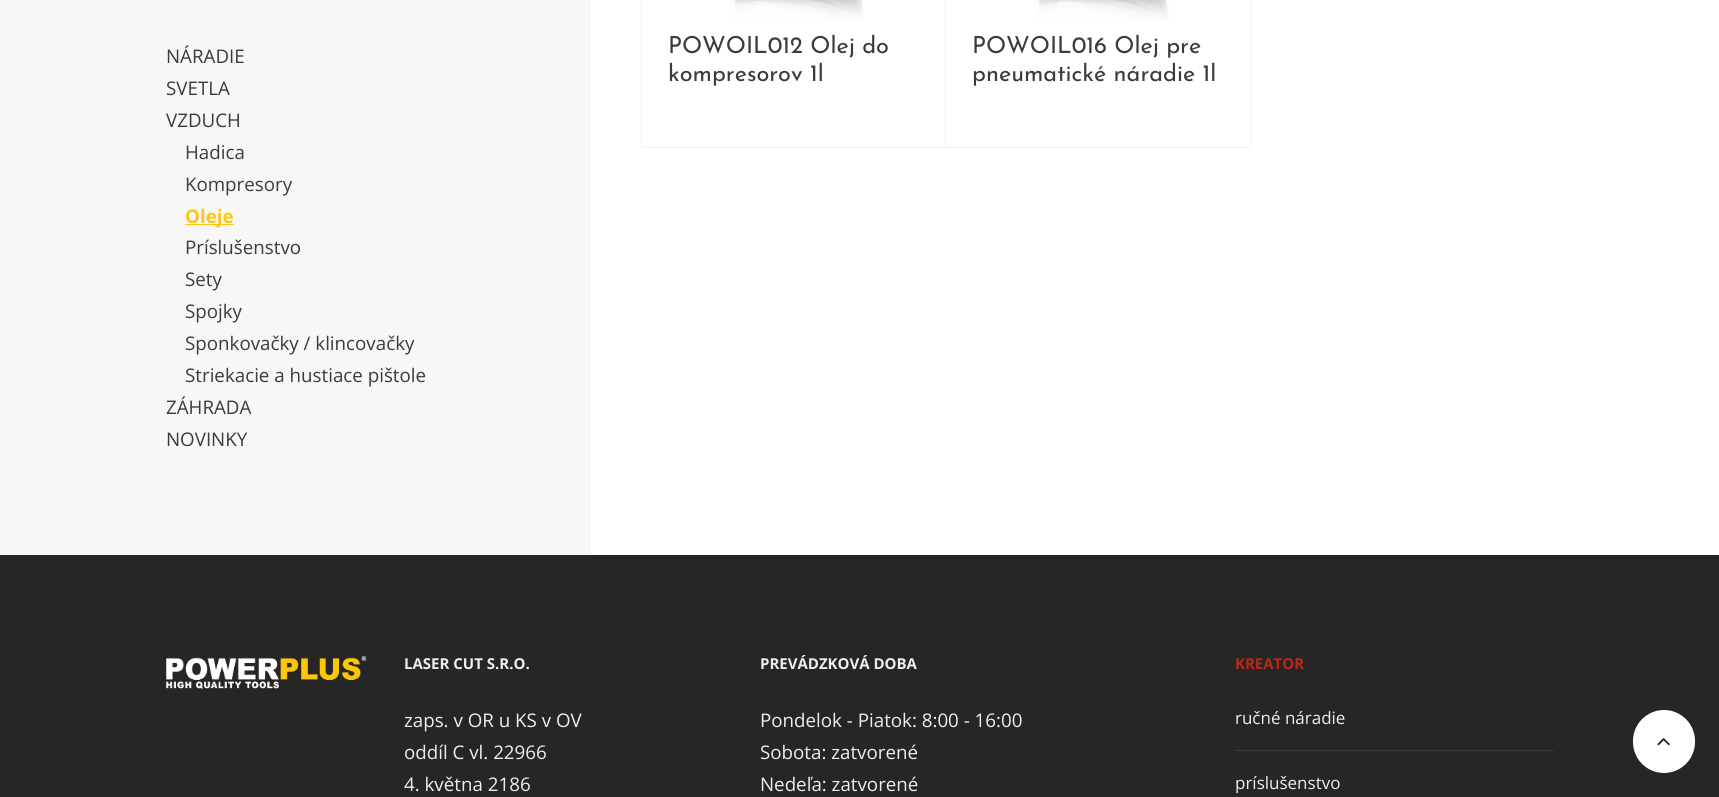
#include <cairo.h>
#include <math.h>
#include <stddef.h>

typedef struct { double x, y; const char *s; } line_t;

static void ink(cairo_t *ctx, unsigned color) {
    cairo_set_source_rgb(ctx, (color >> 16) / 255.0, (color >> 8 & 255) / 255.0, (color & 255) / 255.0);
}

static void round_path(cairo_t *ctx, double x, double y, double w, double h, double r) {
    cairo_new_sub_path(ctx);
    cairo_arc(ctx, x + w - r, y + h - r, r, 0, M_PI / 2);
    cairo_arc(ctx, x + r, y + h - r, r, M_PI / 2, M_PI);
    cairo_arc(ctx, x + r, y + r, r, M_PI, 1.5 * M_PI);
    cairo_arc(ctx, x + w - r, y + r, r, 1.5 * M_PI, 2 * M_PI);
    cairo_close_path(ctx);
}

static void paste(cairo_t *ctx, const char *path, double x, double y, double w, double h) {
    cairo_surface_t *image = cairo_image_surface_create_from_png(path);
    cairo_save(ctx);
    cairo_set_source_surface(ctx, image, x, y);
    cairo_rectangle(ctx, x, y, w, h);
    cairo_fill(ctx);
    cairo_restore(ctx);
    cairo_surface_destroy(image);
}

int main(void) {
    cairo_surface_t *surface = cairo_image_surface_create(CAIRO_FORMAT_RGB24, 1719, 797);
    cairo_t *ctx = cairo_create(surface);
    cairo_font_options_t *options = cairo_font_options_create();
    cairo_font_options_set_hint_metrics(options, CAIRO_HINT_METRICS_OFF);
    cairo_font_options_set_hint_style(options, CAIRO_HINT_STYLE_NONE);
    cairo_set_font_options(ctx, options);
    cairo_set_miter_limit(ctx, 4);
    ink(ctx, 0xFFFFFF);
    cairo_paint(ctx);
    ink(ctx, 0xF7F7F7);
    cairo_rectangle(ctx, 0, 0, 591, 555);
    cairo_fill(ctx);
    cairo_select_font_face(ctx, "Open Sans", CAIRO_FONT_SLANT_NORMAL, CAIRO_FONT_WEIGHT_NORMAL);
    cairo_set_font_size(ctx, 18.75);
    ink(ctx, 0x3B3B3B);
    {
        static const line_t items[] = {
            {166, 63, "NÁRADIE"},
            {166, 95, "SVETLA"},
            {166, 127, "VZDUCH"},
            {185, 159, "Hadica"},
            {185, 191, "Kompresory"},
        };
        for (size_t i = 0; i < sizeof items / sizeof *items; i++) {
            cairo_move_to(ctx, items[i].x, items[i].y);
            cairo_show_text(ctx, items[i].s);
        }
    }
    ink(ctx, 0xFDC613);
    cairo_rectangle(ctx, 185, 224, 49, 1);
    cairo_fill(ctx);
    cairo_select_font_face(ctx, "Open Sans", CAIRO_FONT_SLANT_NORMAL, CAIRO_FONT_WEIGHT_BOLD);
    cairo_move_to(ctx, 185, 223);
    cairo_show_text(ctx, "Oleje");
    cairo_select_font_face(ctx, "Open Sans", CAIRO_FONT_SLANT_NORMAL, CAIRO_FONT_WEIGHT_NORMAL);
    ink(ctx, 0x3B3B3B);
    {
        static const line_t items[] = {
            {185, 254, "Príslušenstvo"},
            {185, 286, "Sety"},
            {185, 318, "Spojky"},
            {185, 350, "Sponkovačky / klincovačky"},
            {185, 382, "Striekacie a hustiace pištole"},
            {166, 414, "ZÁHRADA"},
            {166, 446, "NOVINKY"},
        };
        for (size_t i = 0; i < sizeof items / sizeof *items; i++) {
            cairo_move_to(ctx, items[i].x, items[i].y);
            cairo_show_text(ctx, items[i].s);
        }
    }
    cairo_rectangle(ctx, 641.5, -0.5, 304, 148);
    ink(ctx, 0xF2F2F2);
    cairo_set_line_width(ctx, 1);
    cairo_stroke(ctx);
    paste(ctx, "media/1.png", 730, 0, 133, 19);
    paste(ctx, "media/2.png", 734, 0, 130, 16);
    cairo_select_font_face(ctx, "Josefin Sans", CAIRO_FONT_SLANT_NORMAL, CAIRO_FONT_WEIGHT_NORMAL);
    cairo_set_font_size(ctx, 23.5);
    ink(ctx, 0x3B3B3B);
    cairo_move_to(ctx, 668, 53);
    cairo_show_text(ctx, "POWOIL012 Olej do");
    cairo_move_to(ctx, 668, 81);
    cairo_show_text(ctx, "kompresorov 1l");
    cairo_rectangle(ctx, 945.5, -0.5, 305, 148);
    ink(ctx, 0xF2F2F2);
    cairo_stroke(ctx);
    paste(ctx, "media/3.png", 1034, 0, 135, 20);
    paste(ctx, "media/4.png", 1058, 0, 109, 7);
    ink(ctx, 0x3B3B3B);
    cairo_move_to(ctx, 972, 53);
    cairo_show_text(ctx, "POWOIL016 Olej pre");
    cairo_move_to(ctx, 972, 81);
    cairo_show_text(ctx, "pneumatické náradie 1l");
    ink(ctx, 0x262626);
    cairo_rectangle(ctx, 0, 555, 1719, 242);
    cairo_fill(ctx);
    paste(ctx, "media/5.png", 166, 656, 201, 33);
    cairo_select_font_face(ctx, "Open Sans", CAIRO_FONT_SLANT_NORMAL, CAIRO_FONT_WEIGHT_BOLD);
    cairo_set_font_size(ctx, 15);
    ink(ctx, 0xEEEEEE);
    cairo_move_to(ctx, 404, 669);
    cairo_show_text(ctx, "LASER CUT S.R.O.");
    cairo_select_font_face(ctx, "Open Sans", CAIRO_FONT_SLANT_NORMAL, CAIRO_FONT_WEIGHT_NORMAL);
    cairo_set_font_size(ctx, 18.75);
    {
        static const line_t items[] = {
            {404, 727, "zaps. v OR u KS v OV"},
            {404, 759, "oddíl C vl. 22966"},
            {404, 791, "4. května 2186"},
        };
        for (size_t i = 0; i < sizeof items / sizeof *items; i++) {
            cairo_move_to(ctx, items[i].x, items[i].y);
            cairo_show_text(ctx, items[i].s);
        }
    }
    cairo_select_font_face(ctx, "Open Sans", CAIRO_FONT_SLANT_NORMAL, CAIRO_FONT_WEIGHT_BOLD);
    cairo_set_font_size(ctx, 15);
    cairo_move_to(ctx, 760, 669);
    cairo_show_text(ctx, "PREVÁDZKOVÁ DOBA");
    cairo_select_font_face(ctx, "Open Sans", CAIRO_FONT_SLANT_NORMAL, CAIRO_FONT_WEIGHT_NORMAL);
    cairo_set_font_size(ctx, 18.75);
    {
        static const line_t items[] = {
            {760, 727, "Pondelok - Piatok: 8:00 - 16:00"},
            {760, 759, "Sobota: zatvorené"},
            {760, 791, "Nedeľa: zatvorené"},
        };
        for (size_t i = 0; i < sizeof items / sizeof *items; i++) {
            cairo_move_to(ctx, items[i].x, items[i].y);
            cairo_show_text(ctx, items[i].s);
        }
    }
    cairo_select_font_face(ctx, "Open Sans", CAIRO_FONT_SLANT_NORMAL, CAIRO_FONT_WEIGHT_BOLD);
    cairo_set_font_size(ctx, 15);
    ink(ctx, 0xBD2716);
    cairo_move_to(ctx, 1235, 669);
    cairo_show_text(ctx, "KREATOR");
    cairo_select_font_face(ctx, "Open Sans", CAIRO_FONT_SLANT_NORMAL, CAIRO_FONT_WEIGHT_NORMAL);
    cairo_set_font_size(ctx, 17);
    ink(ctx, 0xEEEEEE);
    cairo_move_to(ctx, 1235, 724);
    cairo_show_text(ctx, "ručné náradie");
    ink(ctx, 0x3A3A3A);
    cairo_rectangle(ctx, 1235, 750, 319, 1);
    cairo_fill(ctx);
    ink(ctx, 0xEEEEEE);
    cairo_move_to(ctx, 1235, 789);
    cairo_show_text(ctx, "príslušenstvo");
    ink(ctx, 0xFFFFFF);
    round_path(ctx, 1633, 710, 62, 63, 31);
    cairo_fill(ctx);
    paste(ctx, "media/6.png", 1657, 738, 13, 8);
    cairo_surface_write_to_png(surface, "image.png");
    cairo_font_options_destroy(options);
    cairo_destroy(ctx);
    cairo_surface_destroy(surface);
    return 0;
}
